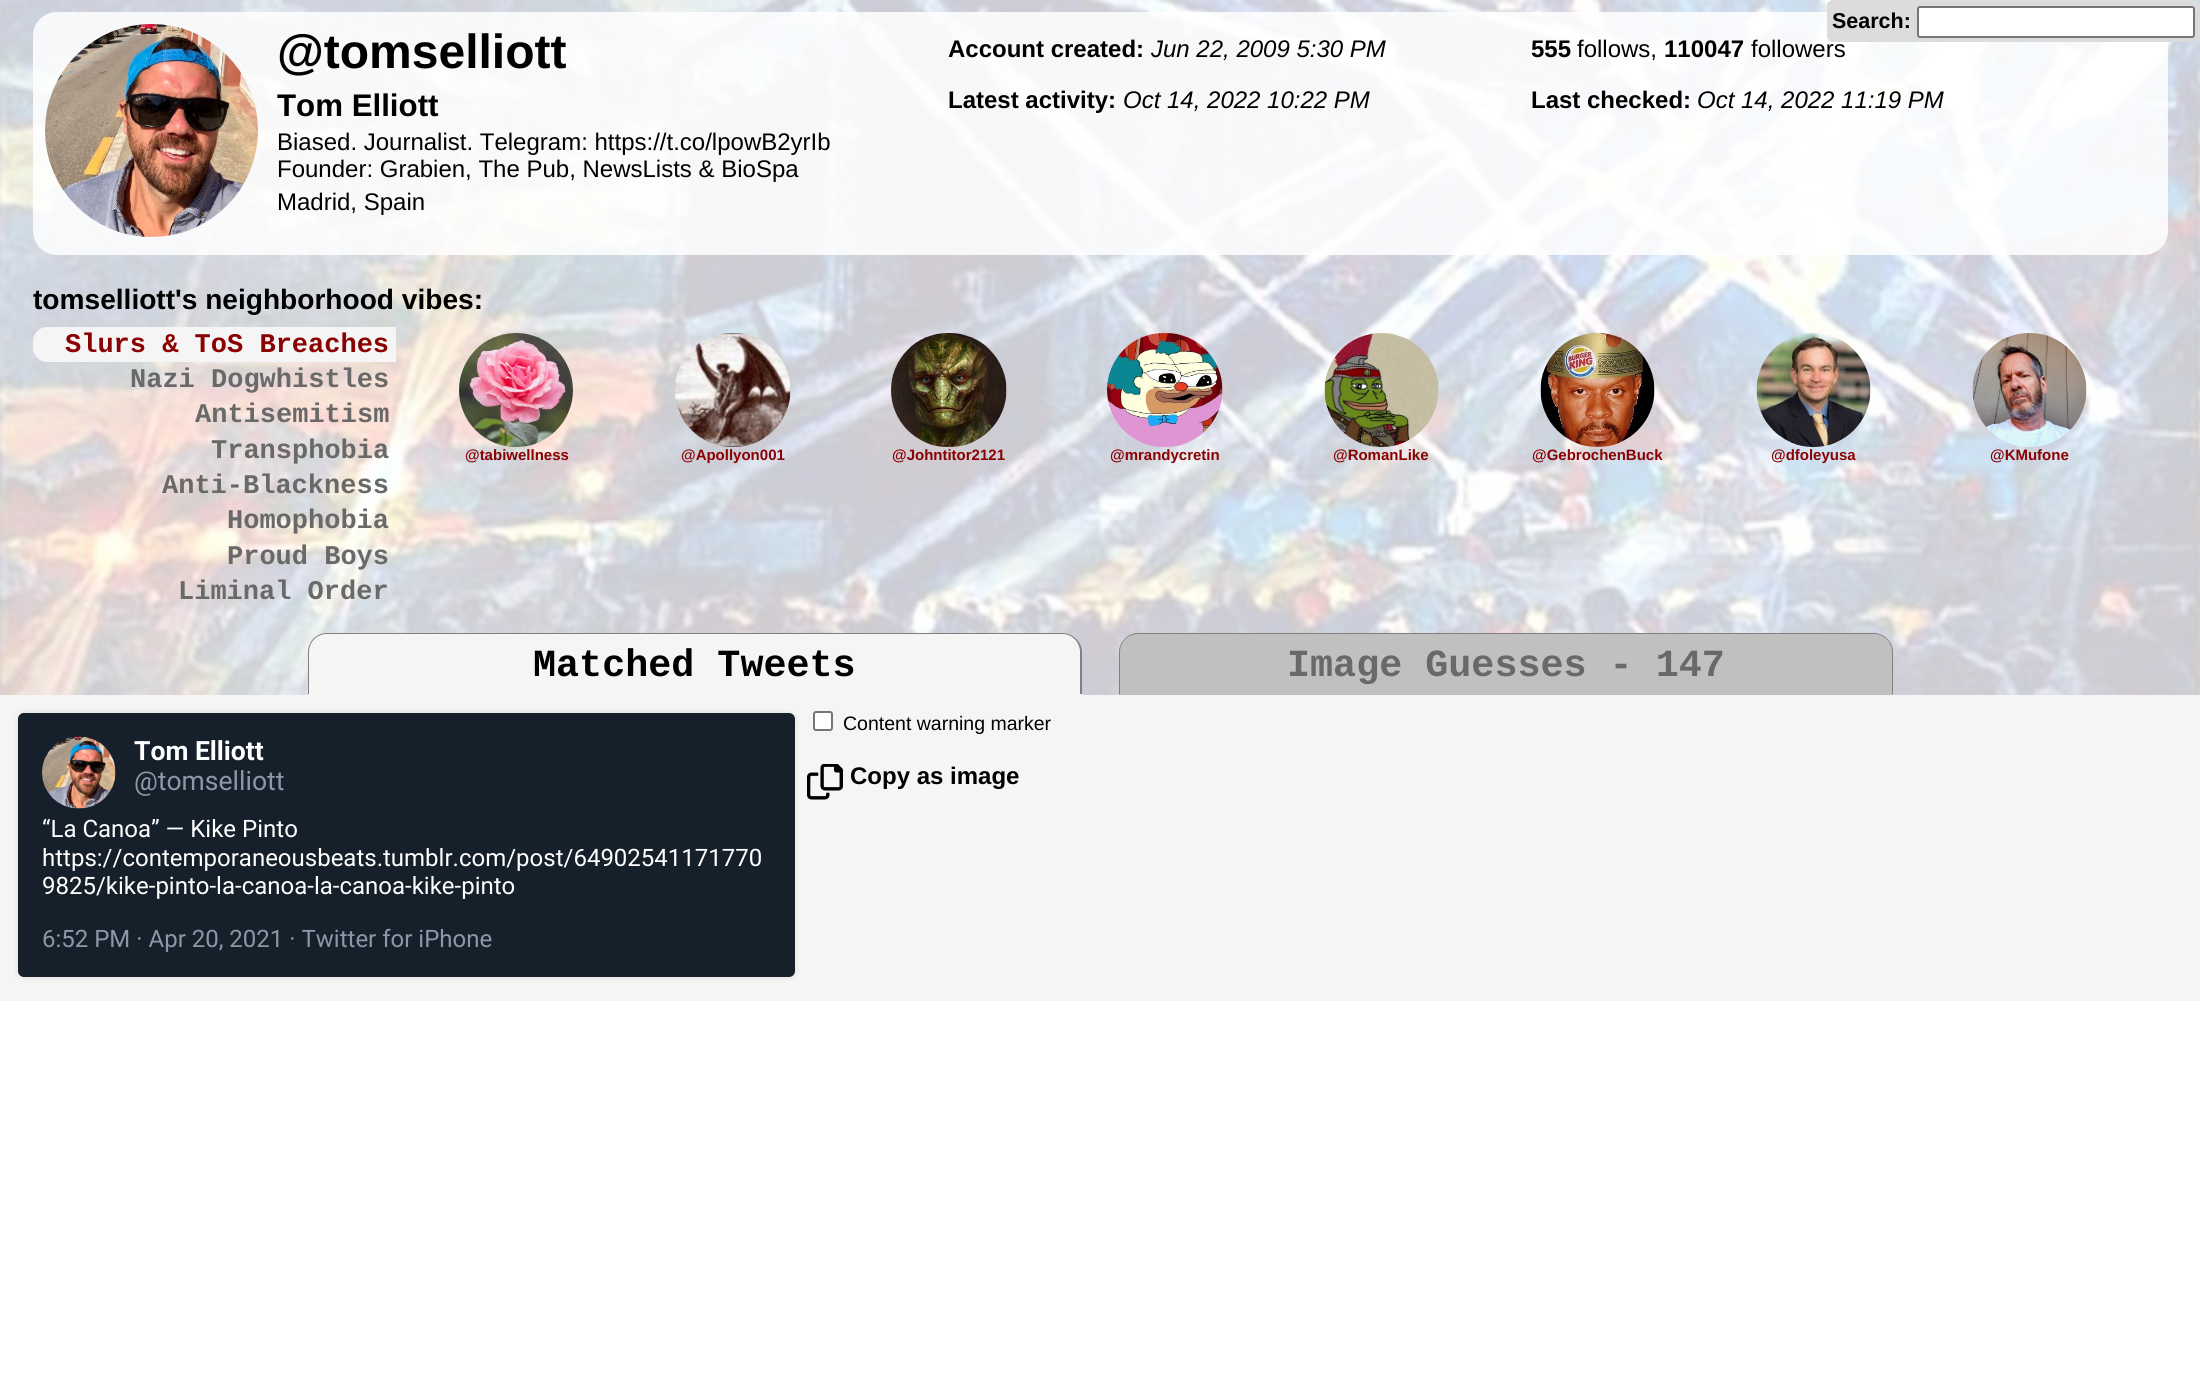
#include <cairo.h>
#include <math.h>
#include <stddef.h>

typedef struct { double x, y; const char *s; } line_t;

static void ink(cairo_t *ctx, unsigned color) {
    cairo_set_source_rgb(ctx, (color >> 16) / 255.0, (color >> 8 & 255) / 255.0, (color & 255) / 255.0);
}

static void round_path(cairo_t *ctx, double x, double y, double w, double h, double r) {
    cairo_new_sub_path(ctx);
    cairo_arc(ctx, x + w - r, y + h - r, r, 0, M_PI / 2);
    cairo_arc(ctx, x + r, y + h - r, r, M_PI / 2, M_PI);
    cairo_arc(ctx, x + r, y + r, r, M_PI, 1.5 * M_PI);
    cairo_arc(ctx, x + w - r, y + r, r, 1.5 * M_PI, 2 * M_PI);
    cairo_close_path(ctx);
}

static void blur_box(cairo_t *ctx, double x, double y, double w, double h, double r, double blur, double alpha) {
    cairo_push_group_with_content(ctx, CAIRO_CONTENT_ALPHA);
    cairo_set_operator(ctx, CAIRO_OPERATOR_SOURCE);
    for (int i = 15; i >= -15 && fmin(w, h) + blur * i / 3 > 0; i -= 2) {
        double e = blur * i / 6;
        cairo_set_source_rgba(ctx, 0, 0, 0, alpha * erfc((i - 1) / 8.5) / 2);
        round_path(ctx, x - e, y - e, w + 2 * e, h + 2 * e, fmax(0, fmin(r + e + blur * .6, fmin(w, h) / 2 + e)));
        cairo_fill(ctx);
    }
    cairo_pattern_t *soft = cairo_pop_group(ctx);
    cairo_mask(ctx, soft);
    cairo_pattern_destroy(soft);
}

static void paste(cairo_t *ctx, const char *path, double x, double y, double w, double h) {
    cairo_surface_t *image = cairo_image_surface_create_from_png(path);
    cairo_save(ctx);
    cairo_set_source_surface(ctx, image, x, y);
    cairo_rectangle(ctx, x, y, w, h);
    cairo_fill(ctx);
    cairo_restore(ctx);
    cairo_surface_destroy(image);
}

int main(void) {
    cairo_surface_t *surface = cairo_image_surface_create(CAIRO_FORMAT_RGB24, 2200, 1399);
    cairo_t *ctx = cairo_create(surface);
    cairo_font_options_t *options = cairo_font_options_create();
    cairo_font_options_set_hint_metrics(options, CAIRO_HINT_METRICS_OFF);
    cairo_font_options_set_hint_style(options, CAIRO_HINT_STYLE_NONE);
    cairo_set_font_options(ctx, options);
    cairo_set_miter_limit(ctx, 4);
    ink(ctx, 0xFFFFFF);
    cairo_paint(ctx);
    paste(ctx, "media/1.png", 0, 0, 2200, 695);
    cairo_set_source_rgba(ctx, 1, 1, 1, 0.85);
    round_path(ctx, 33, 12, 2135, 243, 24);
    cairo_fill(ctx);
    cairo_select_font_face(ctx, "Liberation Sans", CAIRO_FONT_SLANT_NORMAL, CAIRO_FONT_WEIGHT_NORMAL);
    cairo_set_font_size(ctx, 24);
    ink(ctx, 0x000000);
    cairo_move_to(ctx, 1751, 57);
    cairo_show_text(ctx, "followers");
    ink(ctx, 0xDCDCDC);
    round_path(ctx, 1827, 0, 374, 42, 6);
    cairo_fill(ctx);
    cairo_select_font_face(ctx, "Liberation Sans", CAIRO_FONT_SLANT_NORMAL, CAIRO_FONT_WEIGHT_BOLD);
    cairo_set_font_size(ctx, 21.5);
    ink(ctx, 0x000000);
    cairo_move_to(ctx, 1832, 28);
    cairo_show_text(ctx, "Search:");
    ink(ctx, 0xFFFFFF);
    round_path(ctx, 1918, 7, 276, 30, 2);
    cairo_fill_preserve(ctx);
    ink(ctx, 0x767676);
    cairo_stroke(ctx);
    paste(ctx, "media/2.png", 45, 24, 213, 213);
    cairo_set_font_size(ctx, 48);
    ink(ctx, 0x000000);
    cairo_move_to(ctx, 277, 68);
    cairo_show_text(ctx, "@tomselliott");
    cairo_set_font_size(ctx, 31.25);
    cairo_move_to(ctx, 277, 116);
    cairo_show_text(ctx, "Tom Elliott");
    cairo_select_font_face(ctx, "Liberation Sans", CAIRO_FONT_SLANT_NORMAL, CAIRO_FONT_WEIGHT_NORMAL);
    cairo_set_font_size(ctx, 24);
    {
        static const line_t items[] = {
            {277, 150, "Biased. Journalist. Telegram: https://t.co/lpowB2yrIb"},
            {277, 177, "Founder: Grabien, The Pub, NewsLists & BioSpa"},
            {277, 210, "Madrid, Spain"},
        };
        for (size_t i = 0; i < sizeof items / sizeof *items; i++) {
            cairo_move_to(ctx, items[i].x, items[i].y);
            cairo_show_text(ctx, items[i].s);
        }
    }
    cairo_select_font_face(ctx, "Liberation Sans", CAIRO_FONT_SLANT_NORMAL, CAIRO_FONT_WEIGHT_BOLD);
    cairo_move_to(ctx, 948, 57);
    cairo_show_text(ctx, "Account created:");
    cairo_select_font_face(ctx, "Liberation Sans", CAIRO_FONT_SLANT_ITALIC, CAIRO_FONT_WEIGHT_NORMAL);
    cairo_move_to(ctx, 1151, 57);
    cairo_show_text(ctx, "Jun 22, 2009 5:30 PM");
    cairo_select_font_face(ctx, "Liberation Sans", CAIRO_FONT_SLANT_NORMAL, CAIRO_FONT_WEIGHT_BOLD);
    cairo_move_to(ctx, 948, 108);
    cairo_show_text(ctx, "Latest activity:");
    cairo_select_font_face(ctx, "Liberation Sans", CAIRO_FONT_SLANT_ITALIC, CAIRO_FONT_WEIGHT_NORMAL);
    cairo_move_to(ctx, 1123, 108);
    cairo_show_text(ctx, "Oct 14, 2022 10:22 PM");
    cairo_select_font_face(ctx, "Liberation Sans", CAIRO_FONT_SLANT_NORMAL, CAIRO_FONT_WEIGHT_BOLD);
    cairo_move_to(ctx, 1531, 57);
    cairo_show_text(ctx, "555");
    cairo_select_font_face(ctx, "Liberation Sans", CAIRO_FONT_SLANT_NORMAL, CAIRO_FONT_WEIGHT_NORMAL);
    cairo_move_to(ctx, 1577, 57);
    cairo_show_text(ctx, "follows,");
    cairo_select_font_face(ctx, "Liberation Sans", CAIRO_FONT_SLANT_NORMAL, CAIRO_FONT_WEIGHT_BOLD);
    cairo_move_to(ctx, 1664, 57);
    cairo_show_text(ctx, "110047");
    cairo_move_to(ctx, 1531, 108);
    cairo_show_text(ctx, "Last checked:");
    cairo_select_font_face(ctx, "Liberation Sans", CAIRO_FONT_SLANT_ITALIC, CAIRO_FONT_WEIGHT_NORMAL);
    cairo_move_to(ctx, 1697, 108);
    cairo_show_text(ctx, "Oct 14, 2022 11:19 PM");
    cairo_select_font_face(ctx, "Liberation Sans", CAIRO_FONT_SLANT_NORMAL, CAIRO_FONT_WEIGHT_BOLD);
    cairo_set_font_size(ctx, 28.1);
    cairo_move_to(ctx, 33, 309);
    cairo_show_text(ctx, "tomselliott's neighborhood vibes:");
    ink(ctx, 0xF5F5F5);
    cairo_new_path(ctx);
    cairo_move_to(ctx, 47, 327);
    cairo_line_to(ctx, 396, 327);
    cairo_line_to(ctx, 396, 362);
    cairo_line_to(ctx, 47, 362);
    cairo_curve_to(ctx, 39.5, 362, 33, 355.5, 33, 348);
    cairo_line_to(ctx, 33, 341);
    cairo_curve_to(ctx, 33, 333.5, 39.5, 327, 47, 327);
    cairo_close_path(ctx);
    cairo_fill(ctx);
    cairo_select_font_face(ctx, "Liberation Mono", CAIRO_FONT_SLANT_NORMAL, CAIRO_FONT_WEIGHT_BOLD);
    cairo_set_font_size(ctx, 27);
    ink(ctx, 0x8B0000);
    cairo_move_to(ctx, 65, 352);
    cairo_show_text(ctx, "Slurs & ToS Breaches");
    ink(ctx, 0x696969);
    {
        static const line_t items[] = {
            {130, 387, "Nazi Dogwhistles"},
            {195, 422, "Antisemitism"},
            {211, 458, "Transphobia"},
            {162, 493, "Anti-Blackness"},
            {227, 528, "Homophobia"},
            {227, 564, "Proud Boys"},
            {178, 599, "Liminal Order"},
        };
        for (size_t i = 0; i < sizeof items / sizeof *items; i++) {
            cairo_move_to(ctx, items[i].x, items[i].y);
            cairo_show_text(ctx, items[i].s);
        }
    }
    paste(ctx, "media/3.png", 459, 333, 114, 114);
    cairo_select_font_face(ctx, "Liberation Sans", CAIRO_FONT_SLANT_NORMAL, CAIRO_FONT_WEIGHT_BOLD);
    cairo_set_font_size(ctx, 15);
    ink(ctx, 0x8B0000);
    cairo_move_to(ctx, 465, 460);
    cairo_show_text(ctx, "@tabiwellness");
    paste(ctx, "media/4.png", 675, 333, 116, 114);
    cairo_move_to(ctx, 681, 460);
    cairo_show_text(ctx, "@Apollyon001");
    paste(ctx, "media/5.png", 891, 333, 116, 114);
    cairo_move_to(ctx, 892, 460);
    cairo_show_text(ctx, "@Johntitor2121");
    paste(ctx, "media/6.png", 1107, 333, 116, 114);
    cairo_move_to(ctx, 1110, 460);
    cairo_show_text(ctx, "@mrandycretin");
    paste(ctx, "media/7.png", 1324, 333, 115, 114);
    cairo_move_to(ctx, 1333, 460);
    cairo_show_text(ctx, "@RomanLike");
    paste(ctx, "media/8.png", 1540, 333, 115, 114);
    cairo_move_to(ctx, 1532, 460);
    cairo_show_text(ctx, "@GebrochenBuck");
    paste(ctx, "media/9.png", 1756, 333, 115, 114);
    cairo_move_to(ctx, 1771, 460);
    cairo_show_text(ctx, "@dfoleyusa");
    paste(ctx, "media/10.png", 1972, 333, 115, 114);
    cairo_move_to(ctx, 1990, 460);
    cairo_show_text(ctx, "@KMufone");
    ink(ctx, 0xF5F5F5);
    cairo_new_path(ctx);
    cairo_move_to(ctx, 328, 633);
    cairo_line_to(ctx, 1062, 633);
    cairo_curve_to(ctx, 1073, 633, 1082, 642, 1082, 653);
    cairo_line_to(ctx, 1082, 695);
    cairo_line_to(ctx, 308, 695);
    cairo_line_to(ctx, 308, 653);
    cairo_curve_to(ctx, 308, 642, 317, 633, 328, 633);
    cairo_close_path(ctx);
    cairo_fill(ctx);
    ink(ctx, 0x808080);
    cairo_set_fill_rule(ctx, CAIRO_FILL_RULE_EVEN_ODD);
    cairo_new_path(ctx);
    cairo_move_to(ctx, 327, 633);
    cairo_line_to(ctx, 1062, 633);
    cairo_curve_to(ctx, 1073, 633, 1082, 642, 1082, 652);
    cairo_line_to(ctx, 1082, 694);
    cairo_line_to(ctx, 308, 694);
    cairo_line_to(ctx, 308, 652);
    cairo_curve_to(ctx, 308, 642, 316, 633, 327, 633);
    cairo_close_path(ctx);
    cairo_move_to(ctx, 327, 634);
    cairo_line_to(ctx, 1062, 634);
    cairo_curve_to(ctx, 1072, 634, 1080, 642, 1080, 652);
    cairo_line_to(ctx, 1080, 694);
    cairo_line_to(ctx, 309, 694);
    cairo_line_to(ctx, 309, 652);
    cairo_curve_to(ctx, 309, 642, 317, 634, 327, 634);
    cairo_close_path(ctx);
    cairo_fill(ctx);
    cairo_select_font_face(ctx, "Liberation Mono", CAIRO_FONT_SLANT_NORMAL, CAIRO_FONT_WEIGHT_BOLD);
    cairo_set_font_size(ctx, 38.4);
    ink(ctx, 0x000000);
    cairo_move_to(ctx, 533, 676);
    cairo_show_text(ctx, "Matched Tweets");
    ink(ctx, 0xC0C0C0);
    cairo_new_path(ctx);
    cairo_move_to(ctx, 1139, 633);
    cairo_line_to(ctx, 1873, 633);
    cairo_curve_to(ctx, 1884, 633, 1893, 642, 1893, 653);
    cairo_line_to(ctx, 1893, 695);
    cairo_line_to(ctx, 1119, 695);
    cairo_line_to(ctx, 1119, 653);
    cairo_curve_to(ctx, 1119, 642, 1128, 633, 1139, 633);
    cairo_close_path(ctx);
    cairo_fill(ctx);
    ink(ctx, 0x808080);
    cairo_new_path(ctx);
    cairo_move_to(ctx, 1138, 633);
    cairo_line_to(ctx, 1874, 633);
    cairo_curve_to(ctx, 1884, 633, 1893, 642, 1893, 652);
    cairo_line_to(ctx, 1893, 694);
    cairo_line_to(ctx, 1119, 694);
    cairo_line_to(ctx, 1119, 652);
    cairo_curve_to(ctx, 1119, 642, 1128, 633, 1138, 633);
    cairo_close_path(ctx);
    cairo_move_to(ctx, 1138, 634);
    cairo_line_to(ctx, 1874, 634);
    cairo_curve_to(ctx, 1884, 634, 1892, 642, 1892, 652);
    cairo_line_to(ctx, 1892, 694);
    cairo_line_to(ctx, 1120, 694);
    cairo_line_to(ctx, 1120, 652);
    cairo_curve_to(ctx, 1120, 642, 1128, 634, 1138, 634);
    cairo_close_path(ctx);
    cairo_fill(ctx);
    ink(ctx, 0x696969);
    cairo_move_to(ctx, 1287, 676);
    cairo_show_text(ctx, "Image Guesses - 147");
    ink(ctx, 0xF5F5F5);
    cairo_rectangle(ctx, 0, 695, 2200, 306);
    cairo_fill(ctx);
    ink(ctx, 0x000000);
    blur_box(ctx, 18, 713, 777, 264, 6, 3, 0.1);
    ink(ctx, 0x15202B);
    round_path(ctx, 18, 713, 777, 264, 6);
    cairo_fill(ctx);
    paste(ctx, "media/11.png", 42, 736, 74, 73);
    cairo_select_font_face(ctx, "Roboto", CAIRO_FONT_SLANT_NORMAL, CAIRO_FONT_WEIGHT_BOLD);
    cairo_set_font_size(ctx, 26.5);
    ink(ctx, 0xFFFFFF);
    cairo_move_to(ctx, 134, 760);
    cairo_show_text(ctx, "Tom Elliott");
    cairo_select_font_face(ctx, "Roboto", CAIRO_FONT_SLANT_NORMAL, CAIRO_FONT_WEIGHT_NORMAL);
    ink(ctx, 0x8B98A5);
    cairo_move_to(ctx, 134, 790);
    cairo_show_text(ctx, "@tomselliott");
    cairo_set_font_size(ctx, 24);
    ink(ctx, 0xFFFFFF);
    {
        static const line_t items[] = {
            {42, 837, "“La Canoa” — Kike Pinto"},
            {42, 866, "https://contemporaneousbeats.tumblr.com/post/64902541171770"},
            {42, 894, "9825/kike-pinto-la-canoa-la-canoa-kike-pinto"},
        };
        for (size_t i = 0; i < sizeof items / sizeof *items; i++) {
            cairo_move_to(ctx, items[i].x, items[i].y);
            cairo_show_text(ctx, items[i].s);
        }
    }
    ink(ctx, 0x8B98A5);
    cairo_move_to(ctx, 42, 947);
    cairo_show_text(ctx, "6:52 PM · Apr 20, 2021 · Twitter for iPhone");
    ink(ctx, 0xFFFFFF);
    round_path(ctx, 814, 712, 18, 18, 2);
    cairo_fill_preserve(ctx);
    ink(ctx, 0x767676);
    cairo_stroke(ctx);
    cairo_select_font_face(ctx, "Liberation Sans", CAIRO_FONT_SLANT_NORMAL, CAIRO_FONT_WEIGHT_NORMAL);
    cairo_set_font_size(ctx, 19.5);
    ink(ctx, 0x000000);
    cairo_move_to(ctx, 843, 730);
    cairo_show_text(ctx, "Content warning marker");
    paste(ctx, "media/12.png", 807, 764, 36, 36);
    cairo_select_font_face(ctx, "Liberation Sans", CAIRO_FONT_SLANT_NORMAL, CAIRO_FONT_WEIGHT_BOLD);
    cairo_set_font_size(ctx, 24);
    cairo_move_to(ctx, 850, 784);
    cairo_show_text(ctx, "Copy as image");
    cairo_surface_write_to_png(surface, "image.png");
    cairo_font_options_destroy(options);
    cairo_destroy(ctx);
    cairo_surface_destroy(surface);
    return 0;
}
